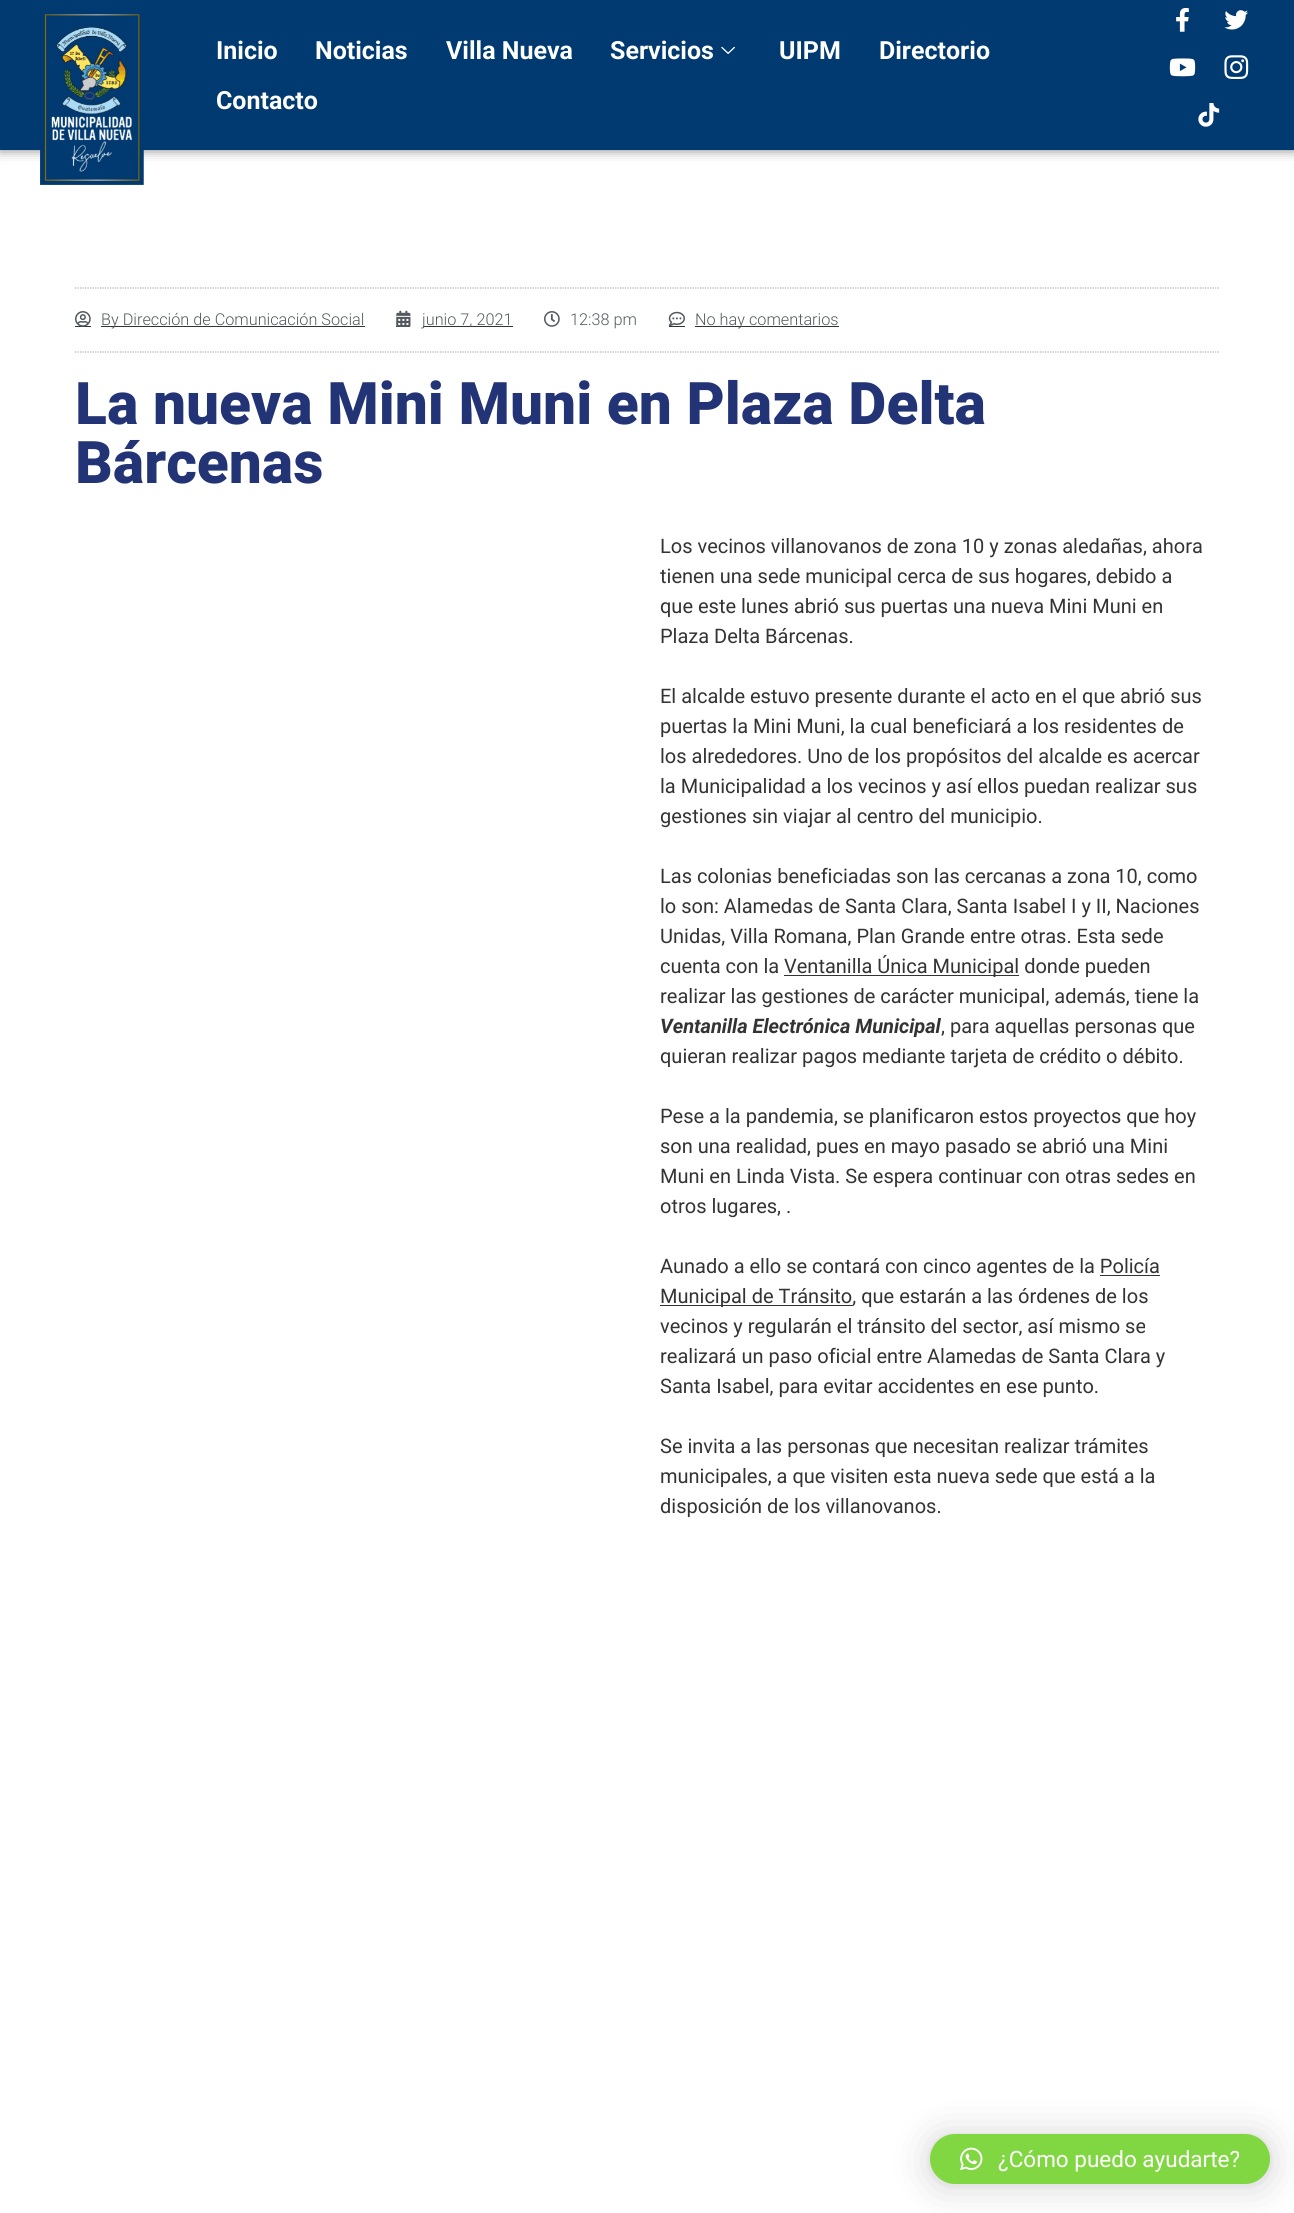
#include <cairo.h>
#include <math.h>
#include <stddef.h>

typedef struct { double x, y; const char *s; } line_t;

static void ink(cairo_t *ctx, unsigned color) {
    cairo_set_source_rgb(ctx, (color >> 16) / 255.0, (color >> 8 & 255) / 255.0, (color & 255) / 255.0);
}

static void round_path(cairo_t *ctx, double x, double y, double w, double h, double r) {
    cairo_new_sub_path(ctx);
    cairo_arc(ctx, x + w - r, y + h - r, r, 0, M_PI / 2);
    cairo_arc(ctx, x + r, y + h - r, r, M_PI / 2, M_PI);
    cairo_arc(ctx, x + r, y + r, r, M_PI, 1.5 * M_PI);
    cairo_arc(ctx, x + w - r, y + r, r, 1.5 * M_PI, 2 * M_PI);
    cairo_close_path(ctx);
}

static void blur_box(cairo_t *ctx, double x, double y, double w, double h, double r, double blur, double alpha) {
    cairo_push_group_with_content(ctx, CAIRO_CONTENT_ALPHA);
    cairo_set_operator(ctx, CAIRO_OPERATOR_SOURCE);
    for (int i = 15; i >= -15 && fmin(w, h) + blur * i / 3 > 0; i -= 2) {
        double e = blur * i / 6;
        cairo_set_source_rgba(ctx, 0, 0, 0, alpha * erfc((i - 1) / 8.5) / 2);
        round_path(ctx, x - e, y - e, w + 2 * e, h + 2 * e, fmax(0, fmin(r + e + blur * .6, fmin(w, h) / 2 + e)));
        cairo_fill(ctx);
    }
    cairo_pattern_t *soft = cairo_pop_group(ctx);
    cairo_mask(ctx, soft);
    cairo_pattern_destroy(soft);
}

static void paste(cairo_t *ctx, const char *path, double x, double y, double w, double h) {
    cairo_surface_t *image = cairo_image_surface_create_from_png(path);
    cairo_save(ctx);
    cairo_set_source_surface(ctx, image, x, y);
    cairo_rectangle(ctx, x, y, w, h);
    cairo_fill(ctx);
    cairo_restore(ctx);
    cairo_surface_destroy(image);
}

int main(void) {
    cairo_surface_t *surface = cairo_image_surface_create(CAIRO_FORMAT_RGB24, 1294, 2213);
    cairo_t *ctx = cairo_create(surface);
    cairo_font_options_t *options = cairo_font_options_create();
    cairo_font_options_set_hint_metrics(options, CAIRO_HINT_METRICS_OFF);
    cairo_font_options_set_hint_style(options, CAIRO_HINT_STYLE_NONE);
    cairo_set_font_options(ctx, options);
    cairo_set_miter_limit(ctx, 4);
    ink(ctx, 0xFFFFFF);
    cairo_paint(ctx);
    ink(ctx, 0x000000);
    blur_box(ctx, 0, 0, 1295, 150, 0, 6, 0.5);
    ink(ctx, 0x003A70);
    cairo_rectangle(ctx, 0, 0, 1294, 150);
    cairo_fill(ctx);
    paste(ctx, "media/1.png", 40, 14, 104, 171);
    cairo_select_font_face(ctx, "Roboto", CAIRO_FONT_SLANT_NORMAL, CAIRO_FONT_WEIGHT_BOLD);
    cairo_set_font_size(ctx, 25);
    ink(ctx, 0xFFFFFF);
    {
        static const line_t items[] = {
            {216, 59, "Inicio"},
            {315, 59, "Noticias"},
            {446, 59, "Villa Nueva"},
            {610, 59, "Servicios"},
        };
        for (size_t i = 0; i < sizeof items / sizeof *items; i++) {
            cairo_move_to(ctx, items[i].x, items[i].y);
            cairo_show_text(ctx, items[i].s);
        }
    }
    paste(ctx, "media/2.png", 721, 46, 14, 8);
    {
        static const line_t items[] = {
            {779, 59, "UIPM"},
            {879, 59, "Directorio"},
            {216, 109, "Contacto"},
        };
        for (size_t i = 0; i < sizeof items / sizeof *items; i++) {
            cairo_move_to(ctx, items[i].x, items[i].y);
            cairo_show_text(ctx, items[i].s);
        }
    }
    paste(ctx, "media/3.png", 1176, 8, 13, 24);
    paste(ctx, "media/4.png", 1224, 10, 24, 20);
    paste(ctx, "media/5.png", 1169, 58, 27, 19);
    paste(ctx, "media/6.png", 1224, 55, 25, 24);
    paste(ctx, "media/7.png", 1198, 103, 22, 24);
    cairo_new_path(ctx);
    cairo_move_to(ctx, 75, 288);
    cairo_line_to(ctx, 1220, 288);
    ink(ctx, 0xAFAFAF);
    cairo_set_line_width(ctx, 1.2);
    cairo_set_dash(ctx, (double[]){1.25, 1.25}, 2, 0);
    cairo_stroke(ctx);
    cairo_new_path(ctx);
    cairo_move_to(ctx, 75, 352);
    cairo_line_to(ctx, 1220, 352);
    cairo_stroke(ctx);
    ink(ctx, 0x333333);
    cairo_rectangle(ctx, 75, 326, 16, 1);
    cairo_fill(ctx);
    paste(ctx, "media/8.png", 75, 311, 16, 16);
    cairo_rectangle(ctx, 101, 326, 264, 1);
    cairo_fill(ctx);
    cairo_select_font_face(ctx, "Roboto Light", CAIRO_FONT_SLANT_NORMAL, CAIRO_FONT_WEIGHT_NORMAL);
    cairo_set_font_size(ctx, 16.25);
    ink(ctx, 0x54595F);
    cairo_move_to(ctx, 101, 325);
    cairo_show_text(ctx, "By Dirección de Comunicación Social");
    ink(ctx, 0x333333);
    cairo_rectangle(ctx, 396, 326, 14, 1);
    cairo_fill(ctx);
    paste(ctx, "media/9.png", 396, 310, 15, 17);
    cairo_rectangle(ctx, 423, 326, 90, 1);
    cairo_fill(ctx);
    ink(ctx, 0x54595F);
    cairo_move_to(ctx, 422, 325);
    cairo_show_text(ctx, "junio 7, 2021");
    paste(ctx, "media/10.png", 544, 311, 16, 16);
    cairo_move_to(ctx, 570, 325);
    cairo_show_text(ctx, "12:38 pm");
    paste(ctx, "media/11.png", 668, 311, 17, 15);
    ink(ctx, 0x333333);
    cairo_rectangle(ctx, 669, 326, 16, 1);
    cairo_fill(ctx);
    cairo_rectangle(ctx, 695, 326, 144, 1);
    cairo_fill(ctx);
    ink(ctx, 0x54595F);
    cairo_move_to(ctx, 695, 325);
    cairo_show_text(ctx, "No hay comentarios");
    cairo_select_font_face(ctx, "Heebo ExtraBold", CAIRO_FONT_SLANT_NORMAL, CAIRO_FONT_WEIGHT_NORMAL);
    cairo_set_font_size(ctx, 58.75);
    ink(ctx, 0x233476);
    cairo_move_to(ctx, 75, 424);
    cairo_show_text(ctx, "La nueva Mini Muni en Plaza Delta");
    cairo_move_to(ctx, 75, 483);
    cairo_show_text(ctx, "Bárcenas");
    cairo_select_font_face(ctx, "Roboto", CAIRO_FONT_SLANT_NORMAL, CAIRO_FONT_WEIGHT_NORMAL);
    cairo_set_font_size(ctx, 20);
    ink(ctx, 0x333333);
    {
        static const line_t items[] = {
            {660, 553, "Los vecinos villanovanos de zona 10 y zonas aledañas, ahora"},
            {660, 583, "tienen una sede municipal cerca de sus hogares, debido a"},
            {660, 613, "que este lunes abrió sus puertas una nueva Mini Muni en"},
            {660, 643, "Plaza Delta Bárcenas."},
            {660, 703, "El alcalde estuvo presente durante el acto en el que abrió sus"},
            {660, 733, "puertas la Mini Muni, la cual beneficiará a los residentes de"},
            {660, 763, "los alrededores. Uno de los propósitos del alcalde es acercar"},
            {660, 793, "la Municipalidad a los vecinos y así ellos puedan realizar sus"},
            {660, 823, "gestiones sin viajar al centro del municipio."},
            {660, 883, "Las colonias beneficiadas son las cercanas a zona 10, como"},
            {660, 913, "lo son: Alamedas de Santa Clara, Santa Isabel I y II, Naciones"},
            {660, 943, "Unidas, Villa Romana, Plan Grande entre otras. Esta sede"},
            {660, 973, "cuenta con la"},
        };
        for (size_t i = 0; i < sizeof items / sizeof *items; i++) {
            cairo_move_to(ctx, items[i].x, items[i].y);
            cairo_show_text(ctx, items[i].s);
        }
    }
    cairo_rectangle(ctx, 784, 975, 235, 1);
    cairo_fill(ctx);
    cairo_move_to(ctx, 784, 973);
    cairo_show_text(ctx, "Ventanilla Única Municipal donde pueden");
    cairo_move_to(ctx, 660, 1003);
    cairo_show_text(ctx, "realizar las gestiones de carácter municipal, además, tiene la");
    cairo_select_font_face(ctx, "Roboto", CAIRO_FONT_SLANT_ITALIC, CAIRO_FONT_WEIGHT_BOLD);
    cairo_move_to(ctx, 660, 1033);
    cairo_show_text(ctx, "Ventanilla Electrónica Municipal");
    cairo_select_font_face(ctx, "Roboto", CAIRO_FONT_SLANT_NORMAL, CAIRO_FONT_WEIGHT_NORMAL);
    {
        static const line_t items[] = {
            {941, 1033, ", para aquellas personas que"},
            {660, 1063, "quieran realizar pagos mediante tarjeta de crédito o débito."},
            {660, 1123, "Pese a la pandemia, se planificaron estos proyectos que hoy"},
            {660, 1153, "son una realidad, pues en mayo pasado se abrió una Mini"},
            {660, 1183, "Muni en Linda Vista. Se espera continuar con otras sedes en"},
            {660, 1213, "otros lugares, ."},
            {660, 1273, "Aunado a ello se contará con cinco agentes de la Policía"},
        };
        for (size_t i = 0; i < sizeof items / sizeof *items; i++) {
            cairo_move_to(ctx, items[i].x, items[i].y);
            cairo_show_text(ctx, items[i].s);
        }
    }
    cairo_rectangle(ctx, 660, 1305, 193, 1);
    cairo_fill(ctx);
    cairo_move_to(ctx, 660, 1303);
    cairo_show_text(ctx, "Municipal de Tránsito, que estarán a las órdenes de los");
    cairo_rectangle(ctx, 1100, 1275, 60, 1);
    cairo_fill(ctx);
    {
        static const line_t items[] = {
            {660, 1333, "vecinos y regularán el tránsito del sector, así mismo se"},
            {660, 1363, "realizará un paso oficial entre Alamedas de Santa Clara y"},
            {660, 1393, "Santa Isabel, para evitar accidentes en ese punto."},
            {660, 1453, "Se invita a las personas que necesitan realizar trámites"},
            {660, 1483, "municipales, a que visiten esta nueva sede que está a la"},
            {660, 1513, "disposición de los villanovanos."},
        };
        for (size_t i = 0; i < sizeof items / sizeof *items; i++) {
            cairo_move_to(ctx, items[i].x, items[i].y);
            cairo_show_text(ctx, items[i].s);
        }
    }
    ink(ctx, 0x000000);
    blur_box(ctx, 930, 2136, 340, 50, 25, 20, 0.16);
    blur_box(ctx, 930, 2135, 340, 50, 25, 4, 0.06);
    ink(ctx, 0x81D742);
    round_path(ctx, 930, 2134, 340, 50, 25);
    cairo_fill(ctx);
    paste(ctx, "media/12.png", 960, 2147, 23, 24);
    cairo_set_font_size(ctx, 22.5);
    ink(ctx, 0xFFFFFF);
    cairo_move_to(ctx, 998, 2167);
    cairo_show_text(ctx, "¿Cómo puedo ayudarte?");
    cairo_surface_write_to_png(surface, "image.png");
    cairo_font_options_destroy(options);
    cairo_destroy(ctx);
    cairo_surface_destroy(surface);
    return 0;
}
